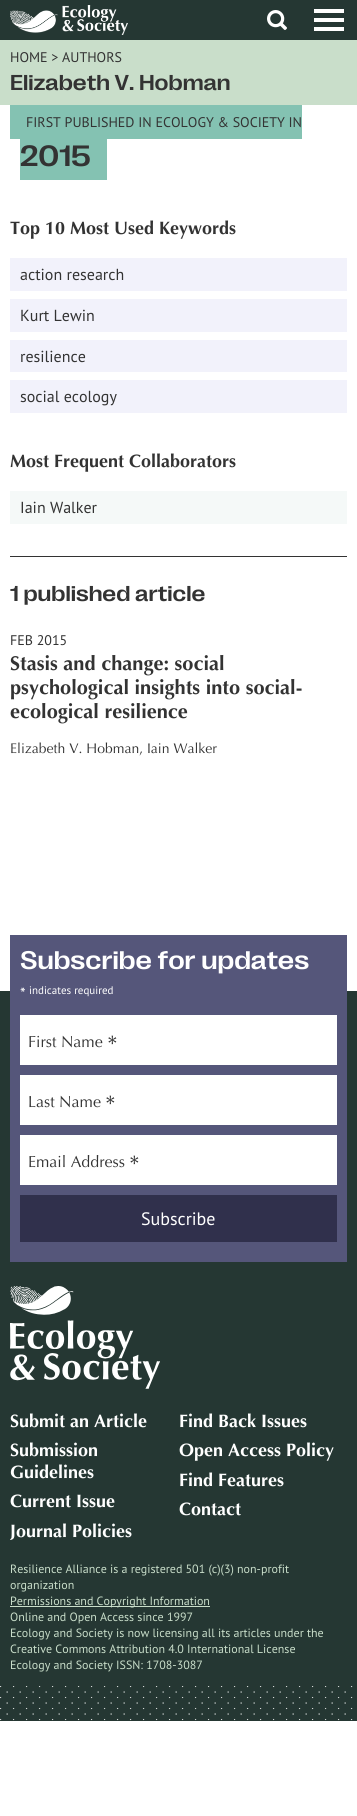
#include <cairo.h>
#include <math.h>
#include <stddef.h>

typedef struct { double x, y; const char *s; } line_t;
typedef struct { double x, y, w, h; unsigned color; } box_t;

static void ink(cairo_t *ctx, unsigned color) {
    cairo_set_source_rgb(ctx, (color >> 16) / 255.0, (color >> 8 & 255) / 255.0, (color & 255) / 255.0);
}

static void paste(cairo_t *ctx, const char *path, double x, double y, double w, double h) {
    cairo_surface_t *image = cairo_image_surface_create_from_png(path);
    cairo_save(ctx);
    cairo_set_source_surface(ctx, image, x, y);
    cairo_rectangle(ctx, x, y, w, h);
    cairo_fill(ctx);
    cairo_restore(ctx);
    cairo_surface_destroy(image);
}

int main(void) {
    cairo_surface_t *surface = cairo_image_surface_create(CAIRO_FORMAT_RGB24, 357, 1816);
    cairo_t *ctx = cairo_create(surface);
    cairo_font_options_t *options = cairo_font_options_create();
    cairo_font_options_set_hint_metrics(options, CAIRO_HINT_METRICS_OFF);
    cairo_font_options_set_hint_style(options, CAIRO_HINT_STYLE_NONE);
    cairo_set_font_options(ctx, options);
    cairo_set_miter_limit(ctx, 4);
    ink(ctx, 0xFFFFFF);
    cairo_paint(ctx);
    ink(ctx, 0x253733);
    cairo_rectangle(ctx, 0, 0, 357, 40);
    cairo_fill(ctx);
    paste(ctx, "media/1.png", 10, 5, 118, 30);
    paste(ctx, "media/2.png", 267, 10, 20, 20);
    {
        static const box_t items[] = {
            {314, 9, 30, 4, 0xFFFFFF},
            {314, 18, 30, 4, 0xFFFFFF},
            {314, 27, 30, 4, 0xFFFFFF},
            {0, 40, 357, 65, 0xC9DECA},
        };
        for (size_t i = 0; i < sizeof items / sizeof *items; i++) {
            ink(ctx, items[i].color);
            cairo_rectangle(ctx, items[i].x, items[i].y, items[i].w, items[i].h);
            cairo_fill(ctx);
        }
    }
    cairo_select_font_face(ctx, "PT Sans", CAIRO_FONT_SLANT_NORMAL, CAIRO_FONT_WEIGHT_NORMAL);
    cairo_set_font_size(ctx, 14);
    ink(ctx, 0x333333);
    cairo_move_to(ctx, 10, 62);
    cairo_show_text(ctx, "HOME > AUTHORS");
    cairo_select_font_face(ctx, "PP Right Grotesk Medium", CAIRO_FONT_SLANT_NORMAL, CAIRO_FONT_WEIGHT_NORMAL);
    cairo_set_font_size(ctx, 22);
    cairo_move_to(ctx, 10, 90);
    cairo_show_text(ctx, "Elizabeth V. Hobman");
    ink(ctx, 0x84C2B2);
    cairo_rectangle(ctx, 10, 105, 292, 34);
    cairo_fill(ctx);
    cairo_rectangle(ctx, 20, 139, 87, 41);
    cairo_fill(ctx);
    cairo_select_font_face(ctx, "PT Sans", CAIRO_FONT_SLANT_NORMAL, CAIRO_FONT_WEIGHT_NORMAL);
    cairo_set_font_size(ctx, 14);
    ink(ctx, 0x333333);
    cairo_move_to(ctx, 26, 127);
    cairo_show_text(ctx, "FIRST PUBLISHED IN ECOLOGY & SOCIETY IN");
    cairo_select_font_face(ctx, "PP Right Grotesk Medium", CAIRO_FONT_SLANT_NORMAL, CAIRO_FONT_WEIGHT_NORMAL);
    cairo_set_font_size(ctx, 30);
    cairo_move_to(ctx, 20, 166);
    cairo_show_text(ctx, "2015");
    cairo_select_font_face(ctx, "Optima", CAIRO_FONT_SLANT_NORMAL, CAIRO_FONT_WEIGHT_BOLD);
    cairo_set_font_size(ctx, 18);
    cairo_move_to(ctx, 10, 234);
    cairo_show_text(ctx, "Top 10 Most Used Keywords");
    ink(ctx, 0xF2F2FB);
    cairo_rectangle(ctx, 10, 258, 337, 33);
    cairo_fill(ctx);
    cairo_select_font_face(ctx, "PT Sans", CAIRO_FONT_SLANT_NORMAL, CAIRO_FONT_WEIGHT_NORMAL);
    cairo_set_font_size(ctx, 16);
    ink(ctx, 0x333333);
    cairo_move_to(ctx, 20, 280);
    cairo_show_text(ctx, "action research");
    ink(ctx, 0xF2F2FB);
    cairo_rectangle(ctx, 10, 299, 337, 33);
    cairo_fill(ctx);
    ink(ctx, 0x333333);
    cairo_move_to(ctx, 20, 321);
    cairo_show_text(ctx, "Kurt Lewin");
    ink(ctx, 0xF2F2FB);
    cairo_rectangle(ctx, 10, 340, 337, 32);
    cairo_fill(ctx);
    ink(ctx, 0x333333);
    cairo_move_to(ctx, 20, 362);
    cairo_show_text(ctx, "resilience");
    ink(ctx, 0xF2F2FB);
    cairo_rectangle(ctx, 10, 380, 337, 33);
    cairo_fill(ctx);
    ink(ctx, 0x333333);
    cairo_move_to(ctx, 20, 402);
    cairo_show_text(ctx, "social ecology");
    cairo_select_font_face(ctx, "Optima", CAIRO_FONT_SLANT_NORMAL, CAIRO_FONT_WEIGHT_BOLD);
    cairo_set_font_size(ctx, 18);
    cairo_move_to(ctx, 10, 467);
    cairo_show_text(ctx, "Most Frequent Collaborators");
    ink(ctx, 0xF5F9F8);
    cairo_rectangle(ctx, 10, 491, 337, 33);
    cairo_fill(ctx);
    cairo_select_font_face(ctx, "PT Sans", CAIRO_FONT_SLANT_NORMAL, CAIRO_FONT_WEIGHT_NORMAL);
    cairo_set_font_size(ctx, 16);
    ink(ctx, 0x333333);
    cairo_move_to(ctx, 20, 513);
    cairo_show_text(ctx, "Iain Walker");
    cairo_rectangle(ctx, 10, 556, 337, 1);
    cairo_fill(ctx);
    cairo_select_font_face(ctx, "PP Right Grotesk Medium", CAIRO_FONT_SLANT_NORMAL, CAIRO_FONT_WEIGHT_NORMAL);
    cairo_set_font_size(ctx, 22);
    cairo_move_to(ctx, 10, 601);
    cairo_show_text(ctx, "1 published article");
    cairo_select_font_face(ctx, "PT Sans", CAIRO_FONT_SLANT_NORMAL, CAIRO_FONT_WEIGHT_NORMAL);
    cairo_set_font_size(ctx, 14);
    cairo_move_to(ctx, 10, 645);
    cairo_show_text(ctx, "FEB 2015");
    cairo_select_font_face(ctx, "Optima", CAIRO_FONT_SLANT_NORMAL, CAIRO_FONT_WEIGHT_BOLD);
    cairo_set_font_size(ctx, 20);
    {
        static const line_t items[] = {
            {10, 670, "Stasis and change: social"},
            {10, 694, "psychological insights into social-"},
            {10, 718, "ecological resilience"},
        };
        for (size_t i = 0; i < sizeof items / sizeof *items; i++) {
            cairo_move_to(ctx, items[i].x, items[i].y);
            cairo_show_text(ctx, items[i].s);
        }
    }
    cairo_select_font_face(ctx, "Optima", CAIRO_FONT_SLANT_NORMAL, CAIRO_FONT_WEIGHT_NORMAL);
    cairo_set_font_size(ctx, 14);
    cairo_move_to(ctx, 10, 753);
    cairo_show_text(ctx, "Elizabeth V. Hobman, Iain Walker");
    ink(ctx, 0x253733);
    cairo_rectangle(ctx, 0, 991, 357, 730);
    cairo_fill(ctx);
    ink(ctx, 0x55567A);
    cairo_rectangle(ctx, 10, 935, 337, 327);
    cairo_fill(ctx);
    cairo_select_font_face(ctx, "PP Right Grotesk Medium", CAIRO_FONT_SLANT_NORMAL, CAIRO_FONT_WEIGHT_NORMAL);
    cairo_set_font_size(ctx, 26);
    ink(ctx, 0xFFFFFF);
    cairo_move_to(ctx, 20, 969);
    cairo_show_text(ctx, "Subscribe for updates");
    cairo_select_font_face(ctx, "PT Sans", CAIRO_FONT_SLANT_NORMAL, CAIRO_FONT_WEIGHT_NORMAL);
    cairo_set_font_size(ctx, 16);
    cairo_move_to(ctx, 20, 999);
    cairo_show_text(ctx, "*");
    cairo_set_font_size(ctx, 11);
    cairo_move_to(ctx, 29, 994);
    cairo_show_text(ctx, "indicates required");
    cairo_rectangle(ctx, 20, 1015, 317, 50);
    cairo_fill(ctx);
    cairo_select_font_face(ctx, "Optima", CAIRO_FONT_SLANT_NORMAL, CAIRO_FONT_WEIGHT_NORMAL);
    cairo_set_font_size(ctx, 16);
    ink(ctx, 0x333333);
    cairo_move_to(ctx, 28, 1047);
    cairo_show_text(ctx, "First Name");
    cairo_set_font_size(ctx, 24);
    cairo_move_to(ctx, 107, 1052);
    cairo_show_text(ctx, "*");
    ink(ctx, 0xFFFFFF);
    cairo_rectangle(ctx, 20, 1075, 317, 50);
    cairo_fill(ctx);
    cairo_set_font_size(ctx, 16);
    ink(ctx, 0x333333);
    cairo_move_to(ctx, 28, 1107);
    cairo_show_text(ctx, "Last Name");
    cairo_set_font_size(ctx, 24);
    cairo_move_to(ctx, 105, 1112);
    cairo_show_text(ctx, "*");
    ink(ctx, 0xFFFFFF);
    cairo_rectangle(ctx, 20, 1135, 317, 50);
    cairo_fill(ctx);
    cairo_set_font_size(ctx, 16);
    ink(ctx, 0x333333);
    cairo_move_to(ctx, 28, 1167);
    cairo_show_text(ctx, "Email Address");
    cairo_set_font_size(ctx, 24);
    cairo_move_to(ctx, 129, 1172);
    cairo_show_text(ctx, "*");
    ink(ctx, 0x30304C);
    cairo_rectangle(ctx, 20, 1195, 317, 47);
    cairo_fill(ctx);
    cairo_select_font_face(ctx, "PT Sans", CAIRO_FONT_SLANT_NORMAL, CAIRO_FONT_WEIGHT_NORMAL);
    cairo_set_font_size(ctx, 18);
    ink(ctx, 0xFFFFFF);
    cairo_move_to(ctx, 141, 1225);
    cairo_show_text(ctx, "Subscribe");
    paste(ctx, "media/3.png", 10, 1286, 150, 103);
    cairo_select_font_face(ctx, "Optima", CAIRO_FONT_SLANT_NORMAL, CAIRO_FONT_WEIGHT_BOLD);
    {
        static const line_t items[] = {
            {10, 1427, "Submit an Article"},
            {179, 1427, "Find Back Issues"},
            {10, 1456, "Submission"},
            {10, 1478, "Guidelines"},
            {179, 1456, "Open Access Policy"},
            {179, 1486, "Find Features"},
            {10, 1507, "Current Issue"},
            {179, 1515, "Contact"},
            {10, 1537, "Journal Policies"},
        };
        for (size_t i = 0; i < sizeof items / sizeof *items; i++) {
            cairo_move_to(ctx, items[i].x, items[i].y);
            cairo_show_text(ctx, items[i].s);
        }
    }
    cairo_select_font_face(ctx, "PT Sans", CAIRO_FONT_SLANT_NORMAL, CAIRO_FONT_WEIGHT_NORMAL);
    cairo_set_font_size(ctx, 12);
    ink(ctx, 0xC9DECA);
    cairo_move_to(ctx, 10, 1573);
    cairo_show_text(ctx, "Resilience Alliance is a registered 501 (c)(3) non-profit");
    cairo_move_to(ctx, 10, 1589);
    cairo_show_text(ctx, "organization");
    cairo_rectangle(ctx, 10, 1606, 200, 1);
    cairo_fill(ctx);
    {
        static const line_t items[] = {
            {10, 1605, "Permissions and Copyright Information"},
            {10, 1621, "Online and Open Access since 1997"},
            {10, 1637, "Ecology and Society is now licensing all its articles under the"},
            {10, 1653, "Creative Commons Attribution 4.0 International License"},
            {10, 1669, "Ecology and Society ISSN: 1708-3087"},
        };
        for (size_t i = 0; i < sizeof items / sizeof *items; i++) {
            cairo_move_to(ctx, items[i].x, items[i].y);
            cairo_show_text(ctx, items[i].s);
        }
    }
    paste(ctx, "media/4.png", 0, 1686, 353, 35);
    cairo_surface_write_to_png(surface, "image.png");
    cairo_font_options_destroy(options);
    cairo_destroy(ctx);
    cairo_surface_destroy(surface);
    return 0;
}
